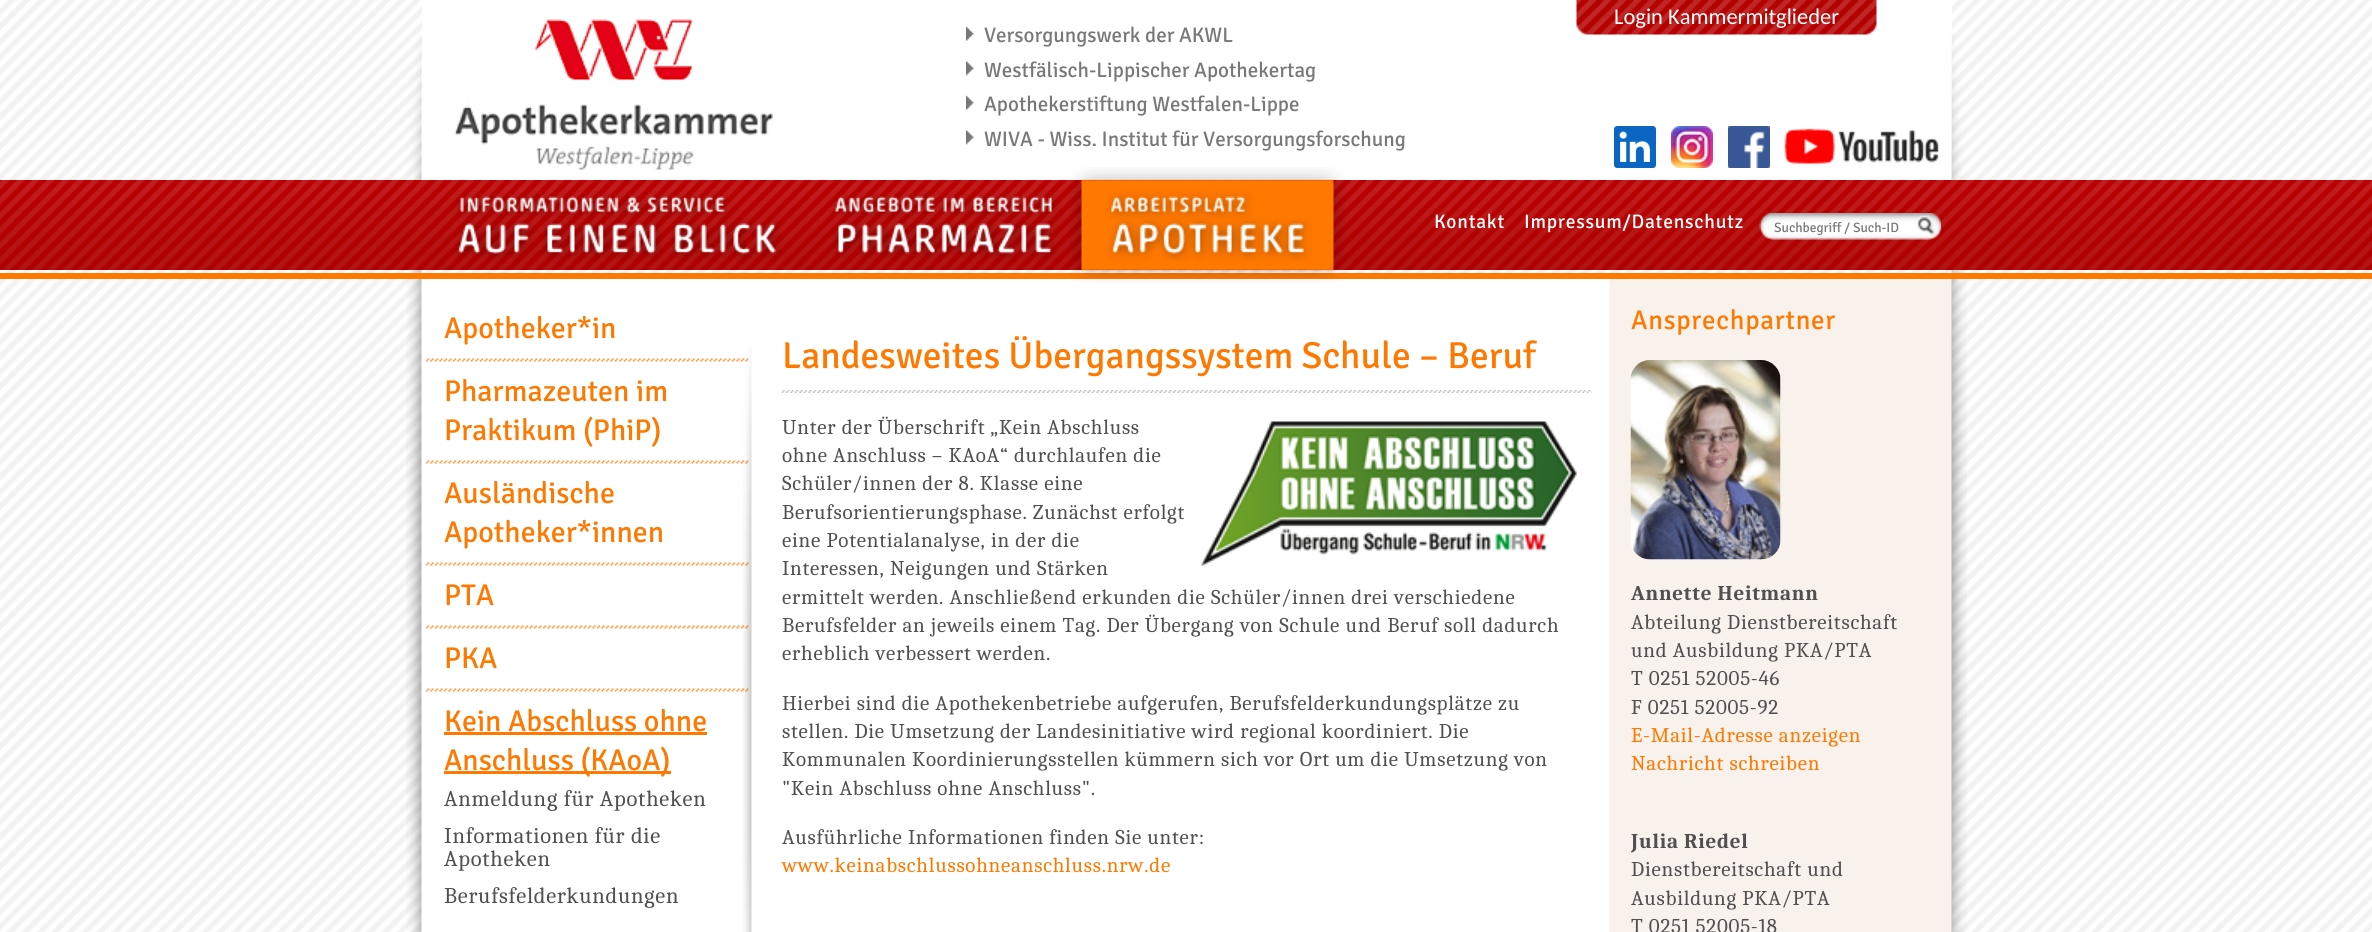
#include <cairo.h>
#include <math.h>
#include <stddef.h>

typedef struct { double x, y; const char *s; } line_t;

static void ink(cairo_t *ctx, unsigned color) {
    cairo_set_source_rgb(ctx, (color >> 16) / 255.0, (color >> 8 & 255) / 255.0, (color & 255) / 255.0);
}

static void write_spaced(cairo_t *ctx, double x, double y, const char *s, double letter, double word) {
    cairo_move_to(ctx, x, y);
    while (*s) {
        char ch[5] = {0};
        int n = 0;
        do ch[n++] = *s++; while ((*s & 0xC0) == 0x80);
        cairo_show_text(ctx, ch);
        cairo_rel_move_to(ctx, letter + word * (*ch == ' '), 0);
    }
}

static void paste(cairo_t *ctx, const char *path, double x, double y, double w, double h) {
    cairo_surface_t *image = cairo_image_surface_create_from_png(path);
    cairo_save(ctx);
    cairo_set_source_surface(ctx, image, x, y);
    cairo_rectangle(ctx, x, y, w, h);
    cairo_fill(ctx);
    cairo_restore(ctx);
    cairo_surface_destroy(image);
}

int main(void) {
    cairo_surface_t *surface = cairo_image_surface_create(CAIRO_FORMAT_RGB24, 2372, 932);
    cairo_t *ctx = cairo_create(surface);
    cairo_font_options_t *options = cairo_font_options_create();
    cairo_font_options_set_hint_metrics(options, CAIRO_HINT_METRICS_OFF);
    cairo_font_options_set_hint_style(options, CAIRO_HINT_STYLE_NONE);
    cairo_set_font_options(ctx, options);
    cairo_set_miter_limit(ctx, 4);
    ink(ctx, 0xFFFFFF);
    cairo_paint(ctx);
    paste(ctx, "media/1.png", 0, 0, 2372, 932);
    ink(ctx, 0xFFFFFF);
    cairo_rectangle(ctx, 422, 0, 1530, 180);
    cairo_fill(ctx);
    paste(ctx, "media/18.png", 421, 279, 1189, 653);
    paste(ctx, "media/2.png", 406, 34, 16, 898);
    paste(ctx, "media/3.png", 454, 19, 319, 151);
    paste(ctx, "media/4.png", 966, 26, 8, 15);
    cairo_select_font_face(ctx, "Signika", CAIRO_FONT_SLANT_NORMAL, CAIRO_FONT_WEIGHT_NORMAL);
    cairo_set_font_size(ctx, 21);
    ink(ctx, 0x787878);
    cairo_move_to(ctx, 984, 42);
    cairo_show_text(ctx, "Versorgungswerk der AKWL");
    paste(ctx, "media/5.png", 966, 61, 8, 15);
    cairo_move_to(ctx, 984, 77);
    cairo_show_text(ctx, "Westfälisch-Lippischer Apothekertag");
    paste(ctx, "media/4.png", 966, 95, 8, 15);
    cairo_move_to(ctx, 984, 111);
    cairo_show_text(ctx, "Apothekerstiftung Westfalen-Lippe");
    paste(ctx, "media/5.png", 966, 130, 8, 15);
    cairo_move_to(ctx, 984, 146);
    cairo_show_text(ctx, "WIVA - Wiss. Institut für Versorgungsforschung");
    paste(ctx, "media/6.png", 1576, 0, 301, 35);
    cairo_select_font_face(ctx, "Carlito", CAIRO_FONT_SLANT_NORMAL, CAIRO_FONT_WEIGHT_NORMAL);
    cairo_set_font_size(ctx, 22.5);
    ink(ctx, 0xFFFFFF);
    cairo_move_to(ctx, 1614, 24);
    cairo_show_text(ctx, "Login Kammermitglieder");
    ink(ctx, 0xF9F1EB);
    cairo_rectangle(ctx, 1610, 279, 342, 653);
    cairo_fill(ctx);
    paste(ctx, "media/7.png", 1951, 34, 16, 898);
    paste(ctx, "media/8.png", 1614, 126, 42, 42);
    paste(ctx, "media/9.png", 1671, 126, 42, 42);
    paste(ctx, "media/10.png", 1728, 126, 42, 42);
    paste(ctx, "media/11.png", 1784, 128, 155, 36);
    paste(ctx, "media/12.png", 0, 180, 2372, 90);
    paste(ctx, "media/13.png", 421, 180, 382, 85);
    paste(ctx, "media/14.png", 802, 180, 280, 85);
    paste(ctx, "media/16.png", 1081, 180, 253, 87);
    ink(ctx, 0xFF7800);
    cairo_rectangle(ctx, 0, 273, 2372, 6);
    cairo_fill(ctx);
    paste(ctx, "media/15.png", 1069, 167, 277, 116);
    cairo_select_font_face(ctx, "Signika", CAIRO_FONT_SLANT_NORMAL, CAIRO_FONT_WEIGHT_NORMAL);
    cairo_set_font_size(ctx, 19.5);
    ink(ctx, 0xFFFFFF);
    write_spaced(ctx, 1434, 228, "Kontakt", 0.75, 0);
    write_spaced(ctx, 1524, 228, "Impressum/Datenschutz", 0.75, 0);
    paste(ctx, "media/17.png", 1759, 213, 182, 27);
    cairo_set_font_size(ctx, 13.5);
    ink(ctx, 0x787878);
    cairo_move_to(ctx, 1774, 232);
    cairo_show_text(ctx, "Suchbegriff / Such-ID");
    cairo_set_font_size(ctx, 30);
    ink(ctx, 0xFF7800);
    cairo_move_to(ctx, 444, 338);
    cairo_show_text(ctx, "Apotheker*in");
    paste(ctx, "media/19.png", 426, 358, 323, 4);
    cairo_move_to(ctx, 444, 401);
    cairo_show_text(ctx, "Pharmazeuten im");
    cairo_move_to(ctx, 444, 440);
    cairo_show_text(ctx, "Praktikum (PhiP)");
    paste(ctx, "media/19.png", 426, 460, 323, 4);
    cairo_move_to(ctx, 444, 503);
    cairo_show_text(ctx, "Ausländische");
    cairo_move_to(ctx, 444, 542);
    cairo_show_text(ctx, "Apotheker*innen");
    paste(ctx, "media/19.png", 426, 562, 323, 4);
    cairo_move_to(ctx, 444, 605);
    cairo_show_text(ctx, "PTA");
    paste(ctx, "media/19.png", 426, 625, 323, 4);
    cairo_move_to(ctx, 444, 668);
    cairo_show_text(ctx, "PKA");
    paste(ctx, "media/19.png", 426, 688, 323, 4);
    cairo_move_to(ctx, 444, 731);
    cairo_show_text(ctx, "Kein Abschluss ohne");
    cairo_rectangle(ctx, 444, 732, 263, 3);
    cairo_fill(ctx);
    cairo_rectangle(ctx, 444, 771, 227, 3);
    cairo_fill(ctx);
    cairo_move_to(ctx, 444, 770);
    cairo_show_text(ctx, "Anschluss (KAoA)");
    cairo_select_font_face(ctx, "Caladea", CAIRO_FONT_SLANT_NORMAL, CAIRO_FONT_WEIGHT_NORMAL);
    cairo_set_font_size(ctx, 22.5);
    ink(ctx, 0x505050);
    {
        static const line_t items[] = {
            {444, 806, "Anmeldung für Apotheken"},
            {444, 843, "Informationen für die"},
            {444, 866, "Apotheken"},
            {444, 903, "Berufsfelderkundungen"},
        };
        for (size_t i = 0; i < sizeof items / sizeof *items; i++) {
            write_spaced(ctx, items[i].x, items[i].y, items[i].s, 0.75, 0);
        }
    }
    paste(ctx, "media/20.png", 742, 345, 10, 587);
    cairo_select_font_face(ctx, "Signika", CAIRO_FONT_SLANT_NORMAL, CAIRO_FONT_WEIGHT_NORMAL);
    cairo_set_font_size(ctx, 37.5);
    ink(ctx, 0xFF7800);
    cairo_move_to(ctx, 782, 368);
    cairo_show_text(ctx, "Landesweites Übergangssystem Schule – Beruf");
    paste(ctx, "media/21.png", 781, 390, 811, 3);
    cairo_select_font_face(ctx, "Caladea", CAIRO_FONT_SLANT_NORMAL, CAIRO_FONT_WEIGHT_NORMAL);
    cairo_set_font_size(ctx, 21);
    ink(ctx, 0x505050);
    {
        static const line_t items[] = {
            {782, 434, "Unter der Überschrift „Kein Abschluss"},
            {782, 462, "ohne Anschluss – KAoA“ durchlaufen die"},
            {782, 490, "Schüler/innen der 8. Klasse eine"},
            {782, 519, "Berufsorientierungsphase. Zunächst erfolgt"},
            {782, 547, "eine Potentialanalyse, in der die"},
            {782, 575, "Interessen, Neigungen und Stärken"},
            {782, 604, "ermittelt werden. Anschließend erkunden die Schüler/innen drei verschiedene"},
            {782, 632, "Berufsfelder an jeweils einem Tag. Der Übergang von Schule und Beruf soll dadurch"},
            {782, 660, "erheblich verbessert werden."},
        };
        for (size_t i = 0; i < sizeof items / sizeof *items; i++) {
            write_spaced(ctx, items[i].x, items[i].y, items[i].s, 0.75, 0);
        }
    }
    paste(ctx, "media/22.png", 1201, 421, 376, 145);
    {
        static const line_t items[] = {
            {782, 710, "Hierbei sind die Apothekenbetriebe aufgerufen, Berufsfelderkundungsplätze zu"},
            {782, 738, "stellen. Die Umsetzung der Landesinitiative wird regional koordiniert. Die"},
            {782, 766, "Kommunalen Koordinierungsstellen kümmern sich vor Ort um die Umsetzung von"},
            {782, 795, "\"Kein Abschluss ohne Anschluss\"."},
            {782, 844, "Ausführliche Informationen finden Sie unter:"},
        };
        for (size_t i = 0; i < sizeof items / sizeof *items; i++) {
            write_spaced(ctx, items[i].x, items[i].y, items[i].s, 0.75, 0);
        }
    }
    ink(ctx, 0xFF7800);
    write_spaced(ctx, 782, 872, "www.keinabschlussohneanschluss.nrw.de", 0.75, 0);
    cairo_select_font_face(ctx, "Signika", CAIRO_FONT_SLANT_NORMAL, CAIRO_FONT_WEIGHT_NORMAL);
    cairo_set_font_size(ctx, 27);
    write_spaced(ctx, 1631, 329, "Ansprechpartner", 0.75, 0);
    paste(ctx, "media/23.png", 1630, 360, 151, 200);
    cairo_select_font_face(ctx, "Caladea", CAIRO_FONT_SLANT_NORMAL, CAIRO_FONT_WEIGHT_BOLD);
    cairo_set_font_size(ctx, 21);
    ink(ctx, 0x505050);
    write_spaced(ctx, 1631, 600, "Annette Heitmann", 0.75, 0);
    cairo_select_font_face(ctx, "Caladea", CAIRO_FONT_SLANT_NORMAL, CAIRO_FONT_WEIGHT_NORMAL);
    {
        static const line_t items[] = {
            {1631, 629, "Abteilung Dienstbereitschaft"},
            {1631, 657, "und Ausbildung PKA/PTA"},
            {1631, 685, "T 0251 52005-46"},
            {1631, 714, "F 0251 52005-92"},
        };
        for (size_t i = 0; i < sizeof items / sizeof *items; i++) {
            write_spaced(ctx, items[i].x, items[i].y, items[i].s, 0.75, 0);
        }
    }
    ink(ctx, 0xFF7800);
    write_spaced(ctx, 1631, 742, "E-Mail-Adresse anzeigen", 0.75, 0);
    write_spaced(ctx, 1631, 770, "Nachricht schreiben", 0.75, 0);
    cairo_select_font_face(ctx, "Caladea", CAIRO_FONT_SLANT_NORMAL, CAIRO_FONT_WEIGHT_BOLD);
    ink(ctx, 0x505050);
    write_spaced(ctx, 1631, 848, "Julia Riedel", 0.75, 0);
    cairo_select_font_face(ctx, "Caladea", CAIRO_FONT_SLANT_NORMAL, CAIRO_FONT_WEIGHT_NORMAL);
    {
        static const line_t items[] = {
            {1631, 876, "Dienstbereitschaft und"},
            {1631, 905, "Ausbildung PKA/PTA"},
            {1631, 933, "T 0251 52005-18"},
        };
        for (size_t i = 0; i < sizeof items / sizeof *items; i++) {
            write_spaced(ctx, items[i].x, items[i].y, items[i].s, 0.75, 0);
        }
    }
    cairo_surface_write_to_png(surface, "image.png");
    cairo_font_options_destroy(options);
    cairo_destroy(ctx);
    cairo_surface_destroy(surface);
    return 0;
}
